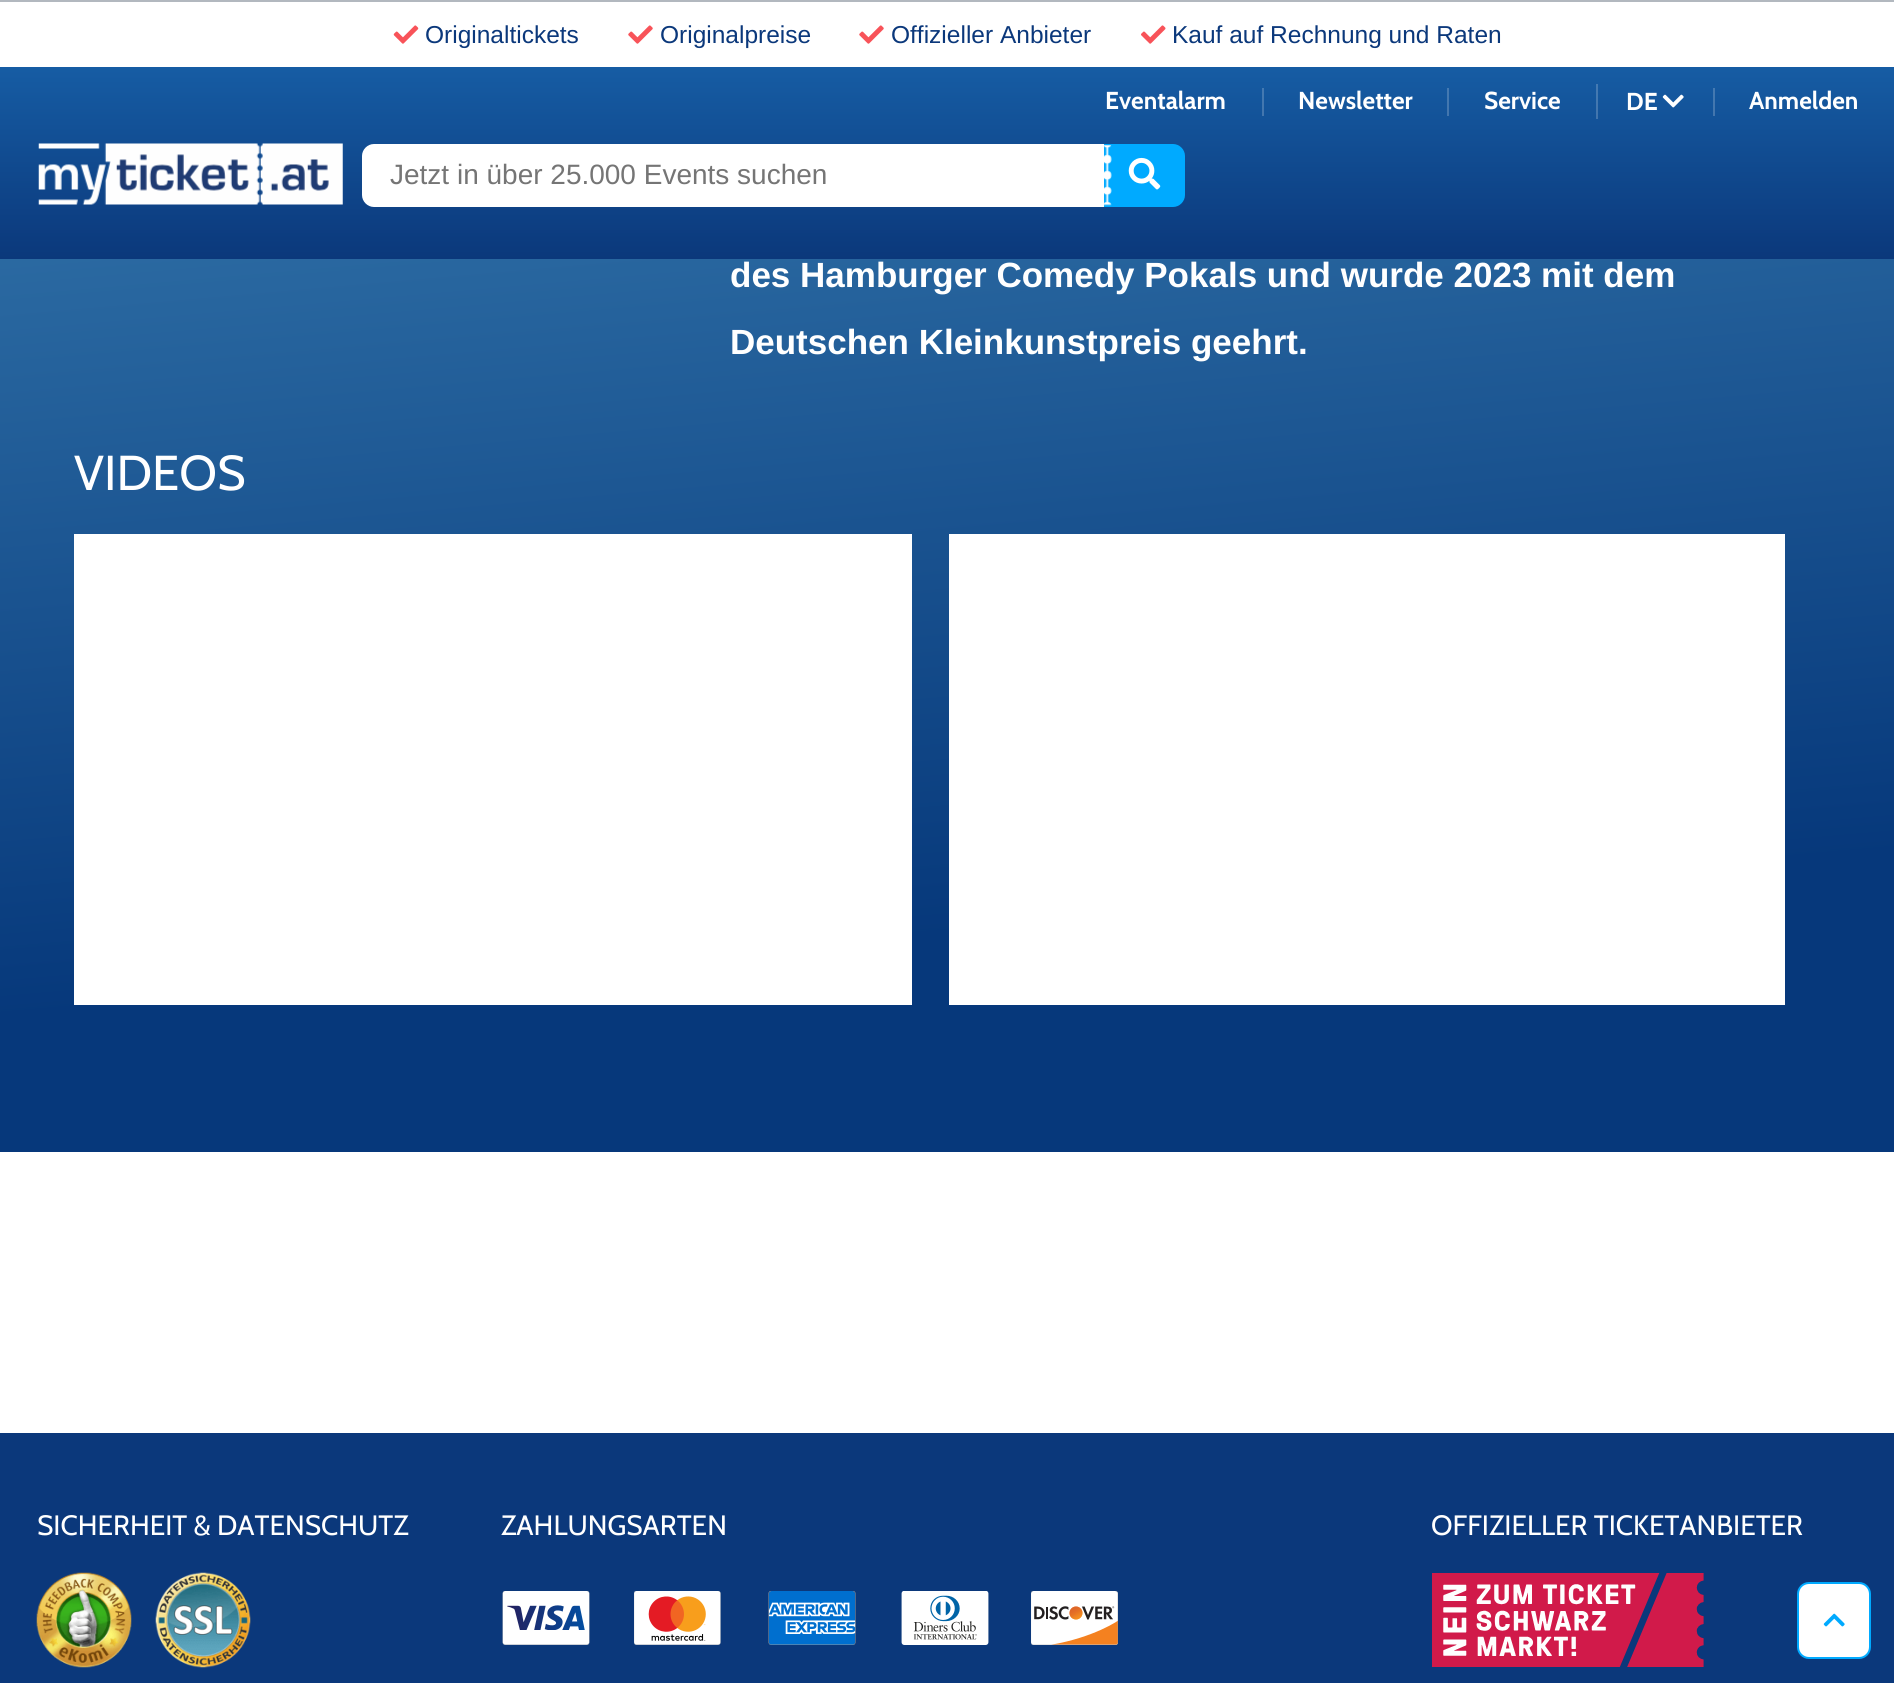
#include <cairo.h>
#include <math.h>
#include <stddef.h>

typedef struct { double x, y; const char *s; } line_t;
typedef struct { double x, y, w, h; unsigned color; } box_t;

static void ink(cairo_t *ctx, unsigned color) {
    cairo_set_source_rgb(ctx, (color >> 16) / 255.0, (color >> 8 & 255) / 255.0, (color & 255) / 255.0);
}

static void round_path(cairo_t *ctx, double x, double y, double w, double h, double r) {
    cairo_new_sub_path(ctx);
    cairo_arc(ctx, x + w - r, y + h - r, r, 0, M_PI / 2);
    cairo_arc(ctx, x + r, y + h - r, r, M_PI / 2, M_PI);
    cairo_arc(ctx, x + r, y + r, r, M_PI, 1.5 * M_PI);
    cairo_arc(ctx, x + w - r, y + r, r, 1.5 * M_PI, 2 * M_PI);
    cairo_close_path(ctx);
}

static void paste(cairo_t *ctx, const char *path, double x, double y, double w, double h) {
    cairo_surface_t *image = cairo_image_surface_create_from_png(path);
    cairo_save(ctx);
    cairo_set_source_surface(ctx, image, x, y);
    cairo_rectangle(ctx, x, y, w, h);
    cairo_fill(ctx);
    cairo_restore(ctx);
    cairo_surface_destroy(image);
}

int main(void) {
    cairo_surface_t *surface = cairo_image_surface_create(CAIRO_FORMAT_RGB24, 1894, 1683);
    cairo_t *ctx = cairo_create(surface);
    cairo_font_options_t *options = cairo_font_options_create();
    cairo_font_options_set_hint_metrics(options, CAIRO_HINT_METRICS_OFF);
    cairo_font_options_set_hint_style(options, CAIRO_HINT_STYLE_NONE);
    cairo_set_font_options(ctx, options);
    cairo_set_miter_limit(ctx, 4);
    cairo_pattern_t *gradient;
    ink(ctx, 0xFFFFFF);
    cairo_paint(ctx);
    ink(ctx, 0xB2B8BF);
    cairo_rectangle(ctx, 0, 0, 1894, 2);
    cairo_fill(ctx);
    paste(ctx, "media/1.png", 393, 25, 26, 19);
    cairo_select_font_face(ctx, "Arimo", CAIRO_FONT_SLANT_NORMAL, CAIRO_FONT_WEIGHT_NORMAL);
    cairo_set_font_size(ctx, 24.5);
    ink(ctx, 0x0B387B);
    cairo_move_to(ctx, 425, 43);
    cairo_show_text(ctx, "Originaltickets");
    paste(ctx, "media/2.png", 628, 25, 25, 19);
    cairo_move_to(ctx, 660, 43);
    cairo_show_text(ctx, "Originalpreise");
    paste(ctx, "media/2.png", 859, 25, 25, 19);
    cairo_move_to(ctx, 891, 43);
    cairo_show_text(ctx, "Offizieller Anbieter");
    paste(ctx, "media/3.png", 1141, 25, 25, 19);
    cairo_move_to(ctx, 1172, 43);
    cairo_show_text(ctx, "Kauf auf Rechnung und Raten");
    gradient = cairo_pattern_create_linear(948, 0, 948, 259);
    cairo_pattern_add_color_stop_rgba(gradient, 0, 0.102, 0.412, 0.698, 1);
    cairo_pattern_add_color_stop_rgba(gradient, 1, 0.043, 0.22, 0.482, 1);
    cairo_set_source(ctx, gradient);
    cairo_pattern_destroy(gradient);
    cairo_rectangle(ctx, 0, 67, 1894, 192);
    cairo_fill(ctx);
    gradient = cairo_pattern_create_linear(948, 0, 948, 259);
    cairo_pattern_add_color_stop_rgba(gradient, 0, 0.282, 0.529, 0.757, 1);
    cairo_pattern_add_color_stop_rgba(gradient, 1, 0.235, 0.376, 0.584, 1);
    cairo_set_source(ctx, gradient);
    cairo_pattern_destroy(gradient);
    cairo_rectangle(ctx, 1713, 88, 2, 28);
    cairo_fill(ctx);
    cairo_rectangle(ctx, 1447, 88, 2, 28);
    cairo_fill(ctx);
    cairo_rectangle(ctx, 1262, 88, 2, 28);
    cairo_fill(ctx);
    cairo_select_font_face(ctx, "Cabin", CAIRO_FONT_SLANT_NORMAL, CAIRO_FONT_WEIGHT_BOLD);
    ink(ctx, 0xFFFFFF);
    {
        static const line_t items[] = {
            {1105, 109, "Eventalarm"},
            {1298, 109, "Newsletter"},
            {1484, 109, "Service"},
        };
        for (size_t i = 0; i < sizeof items / sizeof *items; i++) {
            cairo_move_to(ctx, items[i].x, items[i].y);
            cairo_show_text(ctx, items[i].s);
        }
    }
    cairo_set_source_rgba(ctx, 1, 1, 1, 0.2);
    cairo_rectangle(ctx, 1596, 84, 2, 35);
    cairo_fill(ctx);
    ink(ctx, 0xFFFFFF);
    cairo_move_to(ctx, 1626, 110);
    cairo_show_text(ctx, "DE");
    paste(ctx, "media/4.png", 1662, 94, 22, 14);
    cairo_move_to(ctx, 1749, 109);
    cairo_show_text(ctx, "Anmelden");
    paste(ctx, "media/5.png", 38, 143, 305, 62);
    cairo_new_path(ctx);
    cairo_move_to(ctx, 374, 144);
    cairo_line_to(ctx, 1104, 144);
    cairo_line_to(ctx, 1104, 207);
    cairo_line_to(ctx, 374, 207);
    cairo_curve_to(ctx, 367.5, 207, 362, 201.5, 362, 195);
    cairo_line_to(ctx, 362, 156);
    cairo_curve_to(ctx, 362, 149.5, 367.5, 144, 374, 144);
    cairo_close_path(ctx);
    cairo_fill(ctx);
    cairo_select_font_face(ctx, "Liberation Sans", CAIRO_FONT_SLANT_NORMAL, CAIRO_FONT_WEIGHT_NORMAL);
    cairo_set_font_size(ctx, 28);
    ink(ctx, 0x757575);
    cairo_move_to(ctx, 390, 184);
    cairo_show_text(ctx, "Jetzt in über 25.000 Events suchen");
    ink(ctx, 0x00AAFF);
    cairo_new_path(ctx);
    cairo_move_to(ctx, 1104, 144);
    cairo_line_to(ctx, 1173, 144);
    cairo_curve_to(ctx, 1179.5, 144, 1185, 149.5, 1185, 156);
    cairo_line_to(ctx, 1185, 195);
    cairo_curve_to(ctx, 1185, 201.5, 1179.5, 207, 1173, 207);
    cairo_line_to(ctx, 1104, 207);
    cairo_close_path(ctx);
    cairo_fill(ctx);
    paste(ctx, "media/6.png", 1104, 145, 8, 61);
    paste(ctx, "media/7.png", 1128, 157, 33, 33);
    gradient = cairo_pattern_create_linear(855, -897, 1041, 1226);
    cairo_pattern_add_color_stop_rgba(gradient, 0, 0.2, 0.627, 0.839, 1);
    cairo_pattern_add_color_stop_rgba(gradient, 0.15, 0.224, 0.529, 0.776, 1);
    cairo_pattern_add_color_stop_rgba(gradient, 0.39, 0.212, 0.475, 0.682, 1);
    cairo_pattern_add_color_stop_rgba(gradient, 0.86, 0.024, 0.22, 0.482, 1);
    cairo_set_source(ctx, gradient);
    cairo_pattern_destroy(gradient);
    cairo_rectangle(ctx, 0, 259, 1894, 893);
    cairo_fill(ctx);
    cairo_select_font_face(ctx, "Arimo", CAIRO_FONT_SLANT_NORMAL, CAIRO_FONT_WEIGHT_BOLD);
    cairo_set_font_size(ctx, 35);
    ink(ctx, 0xFFFFFF);
    cairo_move_to(ctx, 730, 287);
    cairo_show_text(ctx, "des Hamburger Comedy Pokals und wurde 2023 mit dem");
    cairo_move_to(ctx, 730, 354);
    cairo_show_text(ctx, "Deutschen Kleinkunstpreis geehrt.");
    cairo_select_font_face(ctx, "Cabin", CAIRO_FONT_SLANT_NORMAL, CAIRO_FONT_WEIGHT_NORMAL);
    cairo_set_font_size(ctx, 49);
    cairo_move_to(ctx, 74, 490);
    cairo_show_text(ctx, "VIDEOS");
    {
        static const box_t items[] = {
            {74, 534, 838, 471, 0xFFFFFF},
            {949, 534, 836, 471, 0xFFFFFF},
            {0, 1433, 1894, 250, 0x0B387B},
        };
        for (size_t i = 0; i < sizeof items / sizeof *items; i++) {
            ink(ctx, items[i].color);
            cairo_rectangle(ctx, items[i].x, items[i].y, items[i].w, items[i].h);
            cairo_fill(ctx);
        }
    }
    cairo_set_font_size(ctx, 28);
    ink(ctx, 0xFFFFFF);
    cairo_move_to(ctx, 37, 1535);
    cairo_show_text(ctx, "SICHERHEIT & DATENSCHUTZ");
    paste(ctx, "media/8.png", 36, 1572, 96, 96);
    paste(ctx, "media/9.png", 155, 1572, 96, 96);
    cairo_move_to(ctx, 501, 1535);
    cairo_show_text(ctx, "ZAHLUNGSARTEN");
    paste(ctx, "media/10.png", 768, 1591, 88, 54);
    paste(ctx, "media/11.png", 634, 1591, 87, 54);
    paste(ctx, "media/12.png", 502, 1591, 88, 54);
    paste(ctx, "media/13.png", 901, 1591, 88, 54);
    paste(ctx, "media/14.png", 1031, 1591, 87, 54);
    cairo_move_to(ctx, 1431, 1535);
    cairo_show_text(ctx, "OFFIZIELLER TICKETANBIETER");
    paste(ctx, "media/15.png", 1432, 1573, 272, 94);
    round_path(ctx, 1798, 1583, 72, 75, 11);
    cairo_fill_preserve(ctx);
    ink(ctx, 0x00AAFF);
    cairo_stroke(ctx);
    paste(ctx, "media/16.png", 1823, 1613, 22, 14);
    cairo_surface_write_to_png(surface, "image.png");
    cairo_font_options_destroy(options);
    cairo_destroy(ctx);
    cairo_surface_destroy(surface);
    return 0;
}
